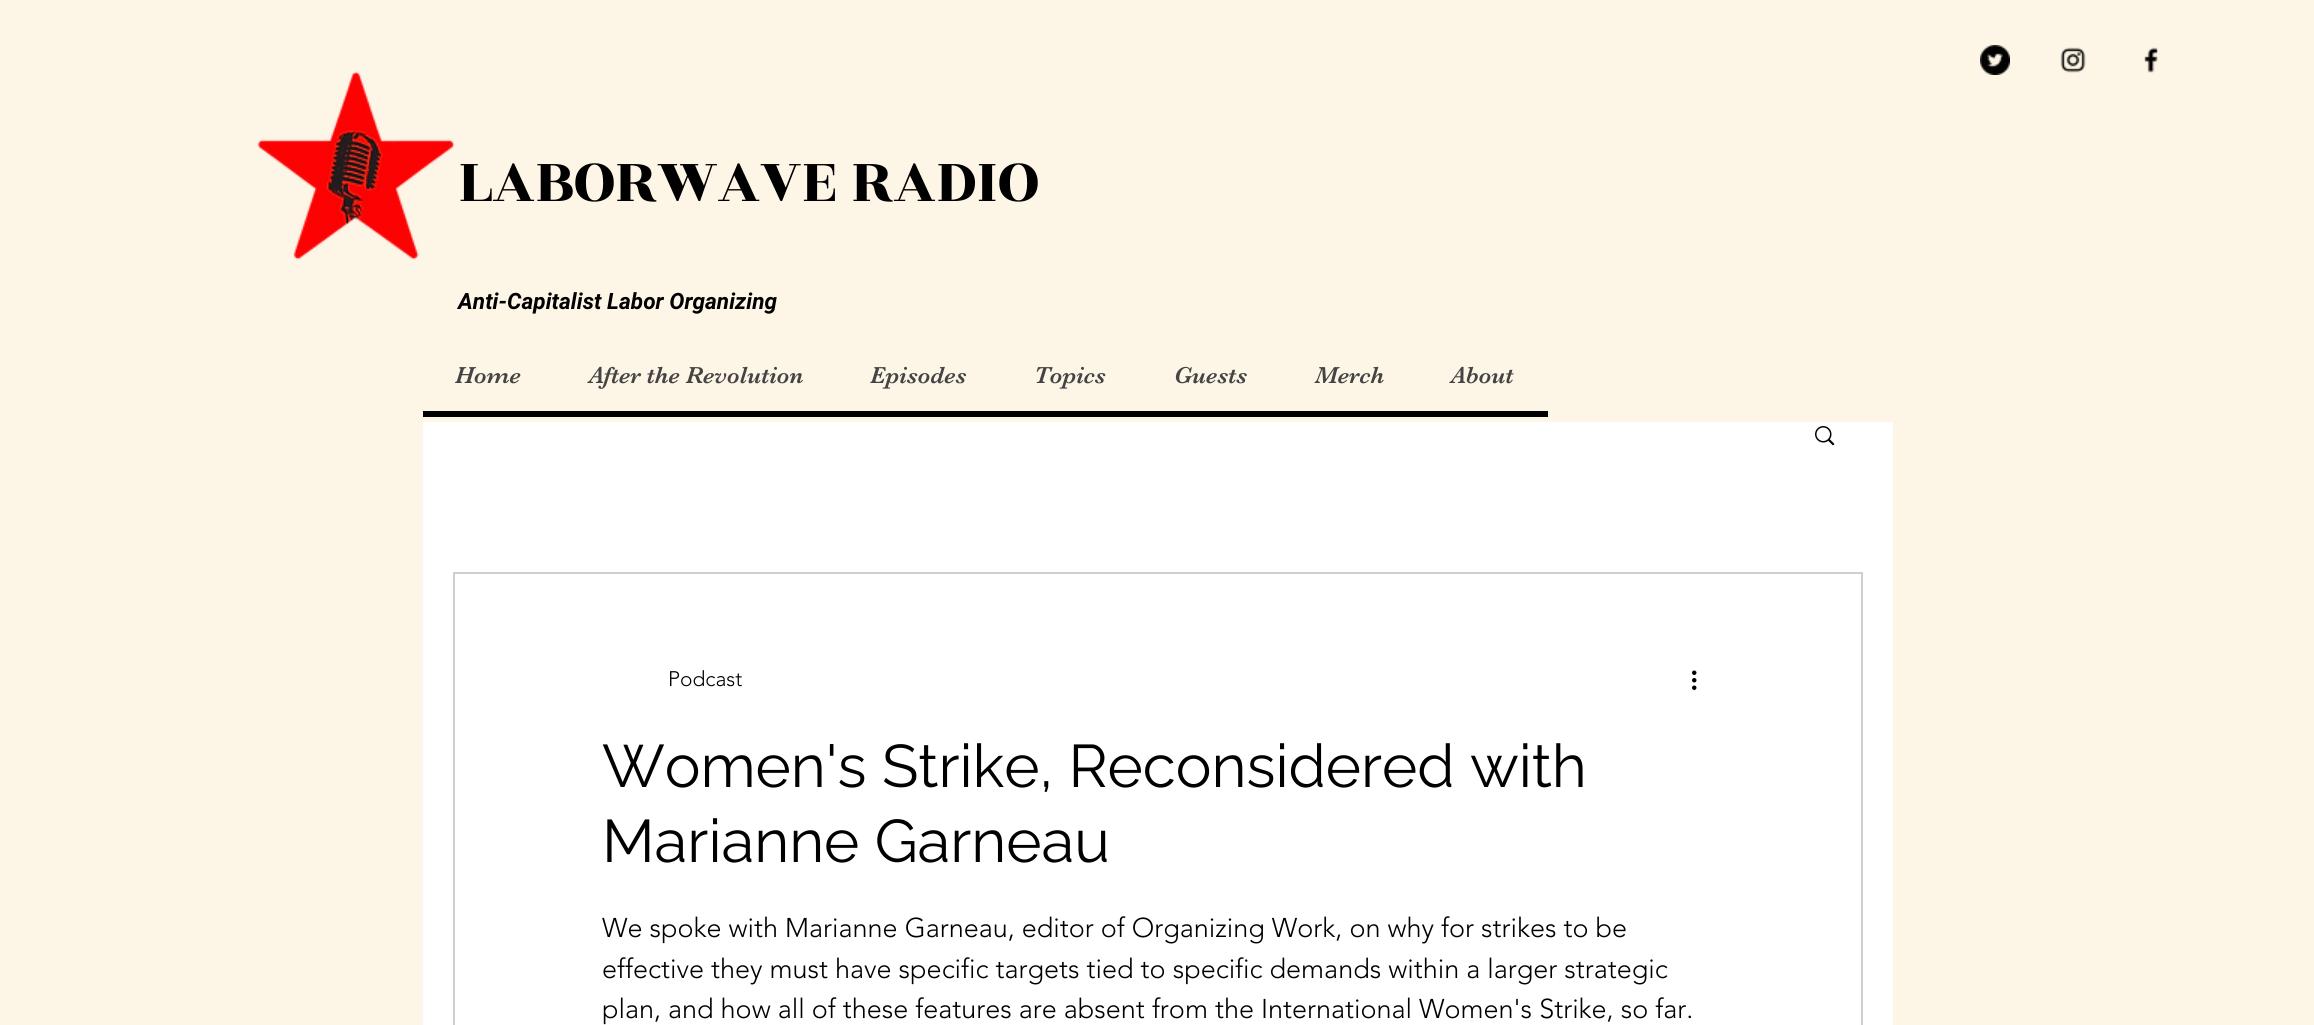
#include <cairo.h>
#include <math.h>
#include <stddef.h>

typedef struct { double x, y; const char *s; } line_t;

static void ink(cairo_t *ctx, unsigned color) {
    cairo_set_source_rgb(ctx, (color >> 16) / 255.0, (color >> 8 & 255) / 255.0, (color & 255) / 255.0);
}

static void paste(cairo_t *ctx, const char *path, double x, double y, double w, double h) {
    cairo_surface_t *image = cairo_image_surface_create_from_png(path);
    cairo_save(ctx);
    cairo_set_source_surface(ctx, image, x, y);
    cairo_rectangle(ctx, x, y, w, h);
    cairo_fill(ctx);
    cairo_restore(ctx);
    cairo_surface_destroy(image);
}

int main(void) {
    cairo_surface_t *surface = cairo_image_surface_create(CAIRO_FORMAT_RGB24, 2314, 1025);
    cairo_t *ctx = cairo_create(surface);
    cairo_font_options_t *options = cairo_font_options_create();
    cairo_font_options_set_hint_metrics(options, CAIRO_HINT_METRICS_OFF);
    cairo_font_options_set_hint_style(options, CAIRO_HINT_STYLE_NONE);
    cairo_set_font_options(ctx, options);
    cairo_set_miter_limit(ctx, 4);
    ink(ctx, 0xFDF5E6);
    cairo_paint(ctx);
    paste(ctx, "media/1.png", 1980, 45, 30, 30);
    paste(ctx, "media/2.png", 2060, 47, 26, 26);
    paste(ctx, "media/3.png", 2144, 47, 14, 26);
    paste(ctx, "media/4.png", 257, 71, 198, 189);
    cairo_select_font_face(ctx, "Rozha One", CAIRO_FONT_SLANT_NORMAL, CAIRO_FONT_WEIGHT_NORMAL);
    cairo_set_font_size(ctx, 66);
    ink(ctx, 0x000000);
    cairo_move_to(ctx, 458, 201);
    cairo_show_text(ctx, "LABORWAVE RADIO");
    cairo_select_font_face(ctx, "Roboto", CAIRO_FONT_SLANT_ITALIC, CAIRO_FONT_WEIGHT_BOLD);
    cairo_set_font_size(ctx, 22.5);
    cairo_move_to(ctx, 458, 309);
    cairo_show_text(ctx, "Anti-Capitalist Labor Organizing");
    cairo_rectangle(ctx, 423, 411, 1125, 6);
    cairo_fill(ctx);
    cairo_select_font_face(ctx, "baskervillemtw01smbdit", CAIRO_FONT_SLANT_NORMAL, CAIRO_FONT_WEIGHT_NORMAL);
    cairo_set_font_size(ctx, 24);
    ink(ctx, 0x444444);
    {
        static const line_t items[] = {
            {455, 383, "Home"},
            {589, 383, "After the Revolution"},
            {870, 383, "Episodes"},
            {1034, 383, "Topics"},
            {1174, 383, "Guests"},
            {1315, 383, "Merch"},
            {1451, 383, "About"},
        };
        for (size_t i = 0; i < sizeof items / sizeof *items; i++) {
            cairo_move_to(ctx, items[i].x, items[i].y);
            cairo_show_text(ctx, items[i].s);
        }
    }
    ink(ctx, 0xFFFFFF);
    cairo_rectangle(ctx, 423, 422, 1470, 603);
    cairo_fill(ctx);
    paste(ctx, "media/5.png", 1815, 426, 20, 20);
    cairo_rectangle(ctx, 454, 573, 1408, 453);
    ink(ctx, 0xCFCFCF);
    cairo_stroke(ctx);
    cairo_select_font_face(ctx, "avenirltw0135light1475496 Light", CAIRO_FONT_SLANT_NORMAL, CAIRO_FONT_WEIGHT_NORMAL);
    cairo_set_font_size(ctx, 21);
    ink(ctx, 0x000000);
    cairo_move_to(ctx, 668, 686);
    cairo_show_text(ctx, "Podcast");
    paste(ctx, "media/6.png", 1692, 670, 5, 20);
    cairo_select_font_face(ctx, "Raleway", CAIRO_FONT_SLANT_NORMAL, CAIRO_FONT_WEIGHT_NORMAL);
    cairo_set_font_size(ctx, 60);
    cairo_move_to(ctx, 602, 787);
    cairo_show_text(ctx, "Women's Strike, Reconsidered with");
    cairo_move_to(ctx, 602, 862);
    cairo_show_text(ctx, "Marianne Garneau");
    cairo_select_font_face(ctx, "avenirltw0135light1475496 Light", CAIRO_FONT_SLANT_NORMAL, CAIRO_FONT_WEIGHT_NORMAL);
    cairo_set_font_size(ctx, 27);
    {
        static const line_t items[] = {
            {602, 937, "We spoke with Marianne Garneau, editor of Organizing Work, on why for strikes to be"},
            {602, 978, "effective they must have specific targets tied to specific demands within a larger strategic"},
            {602, 1018, "plan, and how all of these features are absent from the International Women's Strike, so far."},
        };
        for (size_t i = 0; i < sizeof items / sizeof *items; i++) {
            cairo_move_to(ctx, items[i].x, items[i].y);
            cairo_show_text(ctx, items[i].s);
        }
    }
    cairo_surface_write_to_png(surface, "image.png");
    cairo_font_options_destroy(options);
    cairo_destroy(ctx);
    cairo_surface_destroy(surface);
    return 0;
}
